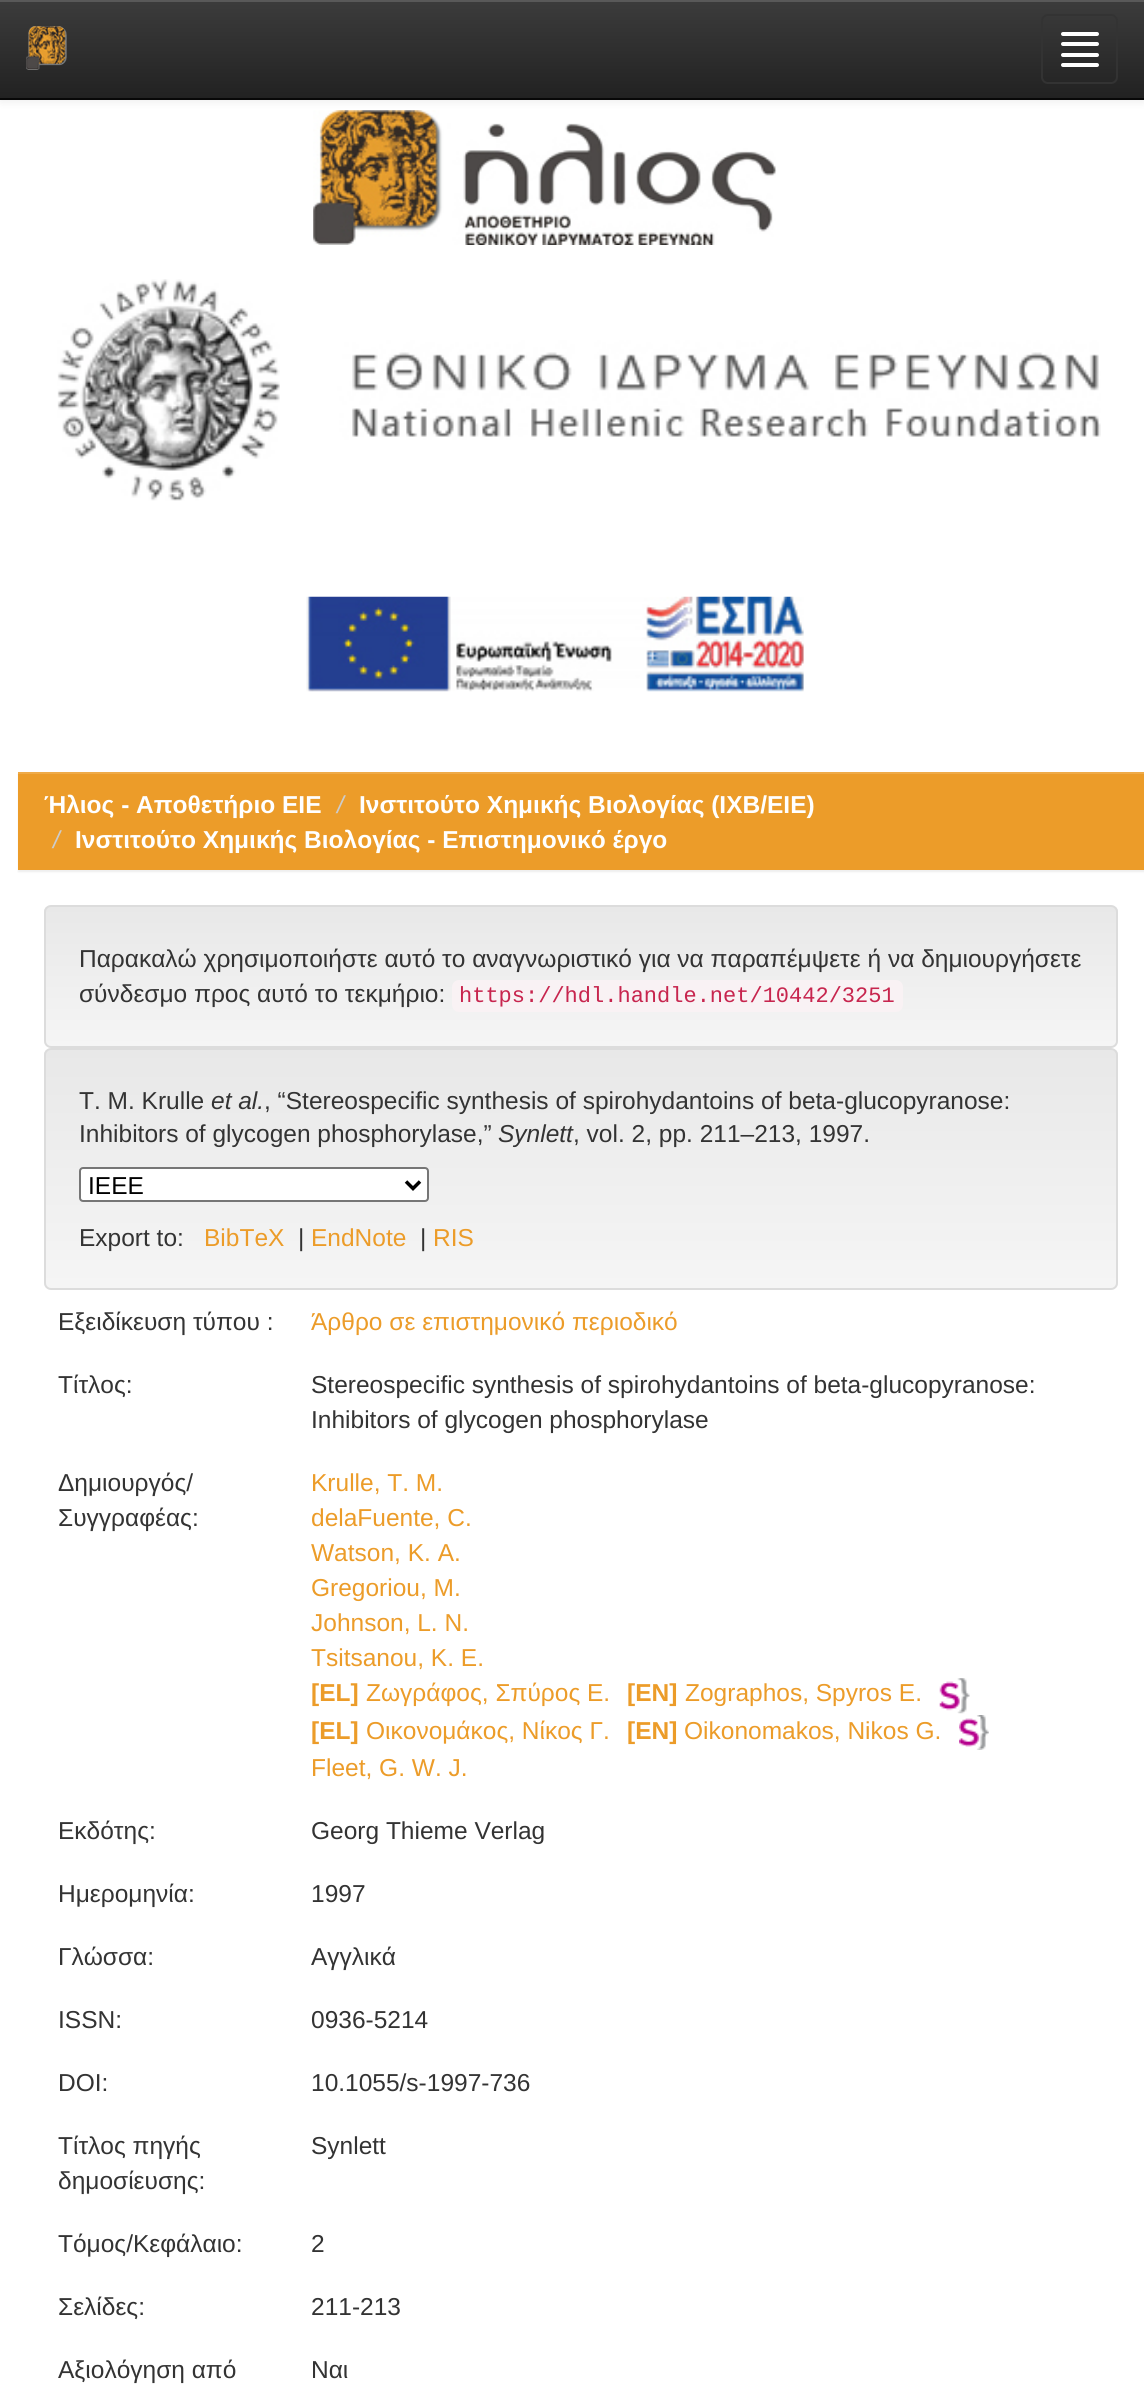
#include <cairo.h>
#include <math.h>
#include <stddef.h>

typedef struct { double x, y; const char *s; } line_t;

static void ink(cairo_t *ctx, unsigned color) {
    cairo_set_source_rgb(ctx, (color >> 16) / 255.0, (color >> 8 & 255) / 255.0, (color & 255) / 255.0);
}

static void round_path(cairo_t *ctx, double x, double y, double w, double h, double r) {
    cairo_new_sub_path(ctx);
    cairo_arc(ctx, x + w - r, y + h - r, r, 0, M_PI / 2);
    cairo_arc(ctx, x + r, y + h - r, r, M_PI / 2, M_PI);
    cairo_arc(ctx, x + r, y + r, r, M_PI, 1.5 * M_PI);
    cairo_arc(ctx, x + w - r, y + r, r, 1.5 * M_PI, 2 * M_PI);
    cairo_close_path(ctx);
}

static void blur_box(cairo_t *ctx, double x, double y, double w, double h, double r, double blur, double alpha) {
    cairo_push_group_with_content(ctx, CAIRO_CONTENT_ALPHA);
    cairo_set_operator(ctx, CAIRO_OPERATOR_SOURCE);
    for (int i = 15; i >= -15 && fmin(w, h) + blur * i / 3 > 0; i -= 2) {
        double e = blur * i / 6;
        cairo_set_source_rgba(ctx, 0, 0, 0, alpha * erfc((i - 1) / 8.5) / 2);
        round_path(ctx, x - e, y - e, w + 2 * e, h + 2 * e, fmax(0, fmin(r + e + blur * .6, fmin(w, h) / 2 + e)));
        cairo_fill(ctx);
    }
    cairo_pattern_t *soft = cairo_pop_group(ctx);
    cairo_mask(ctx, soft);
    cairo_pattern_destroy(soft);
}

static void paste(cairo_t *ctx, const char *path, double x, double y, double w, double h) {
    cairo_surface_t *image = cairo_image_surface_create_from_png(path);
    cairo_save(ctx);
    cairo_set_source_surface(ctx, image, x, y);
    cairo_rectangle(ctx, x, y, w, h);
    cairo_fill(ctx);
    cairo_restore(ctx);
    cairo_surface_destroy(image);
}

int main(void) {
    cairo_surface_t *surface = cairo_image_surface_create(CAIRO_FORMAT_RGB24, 1144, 2405);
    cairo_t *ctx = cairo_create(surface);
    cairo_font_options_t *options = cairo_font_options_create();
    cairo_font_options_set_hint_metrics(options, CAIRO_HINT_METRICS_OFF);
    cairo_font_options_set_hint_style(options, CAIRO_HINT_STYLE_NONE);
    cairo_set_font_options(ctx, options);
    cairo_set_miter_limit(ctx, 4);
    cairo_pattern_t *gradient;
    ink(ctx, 0xFFFFFF);
    cairo_paint(ctx);
    paste(ctx, "media/2.png", 313, 110, 464, 135);
    ink(ctx, 0x000000);
    blur_box(ctx, 0, 2, 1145, 100, 0, 4.5, 0.07);
    gradient = cairo_pattern_create_linear(572, 0, 572, 98);
    cairo_pattern_add_color_stop_rgba(gradient, 0, 0.235, 0.235, 0.235, 1);
    cairo_pattern_add_color_stop_rgba(gradient, 1, 0.133, 0.133, 0.133, 1);
    cairo_set_source(ctx, gradient);
    cairo_pattern_destroy(gradient);
    cairo_rectangle(ctx, 0, 2, 1144, 96);
    cairo_fill(ctx);
    ink(ctx, 0x595959);
    cairo_rectangle(ctx, 0, 0, 1144, 2);
    cairo_fill(ctx);
    ink(ctx, 0x080808);
    cairo_rectangle(ctx, 0, 98, 1144, 2);
    cairo_fill(ctx);
    paste(ctx, "media/1.png", 26, 26, 41, 44);
    round_path(ctx, 1042, 15, 75, 68, 6);
    ink(ctx, 0x333333);
    cairo_stroke(ctx);
    ink(ctx, 0xFFFFFF);
    round_path(ctx, 1061, 32, 38, 4, 2);
    cairo_fill(ctx);
    round_path(ctx, 1061, 42, 38, 4, 2);
    cairo_fill(ctx);
    round_path(ctx, 1061, 53, 38, 4, 2);
    cairo_fill(ctx);
    round_path(ctx, 1061, 63, 38, 4, 2);
    cairo_fill(ctx);
    paste(ctx, "media/3.png", 57, 279, 1044, 222);
    paste(ctx, "media/4.png", 306, 596, 498, 96);
    ink(ctx, 0x000000);
    blur_box(ctx, 18, 774, 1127, 98, 0, 1, 0.07);
    ink(ctx, 0xEC9C29);
    cairo_rectangle(ctx, 18, 774, 1126, 96);
    cairo_fill(ctx);
    ink(ctx, 0xEFAB49);
    cairo_rectangle(ctx, 18, 772, 1126, 2);
    cairo_fill(ctx);
    cairo_select_font_face(ctx, "Liberation Sans", CAIRO_FONT_SLANT_NORMAL, CAIRO_FONT_WEIGHT_BOLD);
    cairo_set_font_size(ctx, 24.5);
    ink(ctx, 0xFFFFFF);
    cairo_move_to(ctx, 44, 813);
    cairo_show_text(ctx, "Ήλιος - Αποθετήριο ΕΙΕ");
    cairo_select_font_face(ctx, "Liberation Sans", CAIRO_FONT_SLANT_ITALIC, CAIRO_FONT_WEIGHT_NORMAL);
    ink(ctx, 0xCCCCCC);
    cairo_move_to(ctx, 337, 813);
    cairo_show_text(ctx, "/");
    cairo_select_font_face(ctx, "Liberation Sans", CAIRO_FONT_SLANT_NORMAL, CAIRO_FONT_WEIGHT_BOLD);
    ink(ctx, 0xFFFFFF);
    cairo_move_to(ctx, 359, 813);
    cairo_show_text(ctx, "Ινστιτούτο Χημικής Βιολογίας (ΙΧΒ/ΕΙΕ)");
    cairo_select_font_face(ctx, "Liberation Sans", CAIRO_FONT_SLANT_ITALIC, CAIRO_FONT_WEIGHT_NORMAL);
    ink(ctx, 0xCCCCCC);
    cairo_move_to(ctx, 53, 848);
    cairo_show_text(ctx, "/");
    cairo_select_font_face(ctx, "Liberation Sans", CAIRO_FONT_SLANT_NORMAL, CAIRO_FONT_WEIGHT_BOLD);
    ink(ctx, 0xFFFFFF);
    cairo_move_to(ctx, 75, 848);
    cairo_show_text(ctx, "Ινστιτούτο Χημικής Βιολογίας - Επιστημονικό έργο");
    cairo_save(ctx);
    round_path(ctx, 44, 905, 1074, 143, 7);
    cairo_clip(ctx);
    gradient = cairo_pattern_create_linear(581, 907, 581, 1047);
    cairo_pattern_add_color_stop_rgba(gradient, 0, 0.91, 0.91, 0.91, 1);
    cairo_pattern_add_color_stop_rgba(gradient, 1, 0.961, 0.961, 0.961, 1);
    cairo_set_source(ctx, gradient);
    cairo_pattern_destroy(gradient);
    cairo_rectangle(ctx, 44, 907, 1074, 140);
    cairo_fill(ctx);
    cairo_restore(ctx);
    round_path(ctx, 45, 906, 1072, 141, 6);
    ink(ctx, 0xDCDCDC);
    cairo_stroke(ctx);
    cairo_select_font_face(ctx, "Liberation Sans", CAIRO_FONT_SLANT_NORMAL, CAIRO_FONT_WEIGHT_NORMAL);
    ink(ctx, 0x333333);
    cairo_move_to(ctx, 79, 967);
    cairo_show_text(ctx, "Παρακαλώ χρησιμοποιήστε αυτό το αναγνωριστικό για να παραπέμψετε ή να δημιουργήσετε");
    cairo_move_to(ctx, 79, 1002);
    cairo_show_text(ctx, "σύνδεσμο προς αυτό το τεκμήριο:");
    ink(ctx, 0xF9F2F4);
    round_path(ctx, 452, 980, 451, 32, 7);
    cairo_fill(ctx);
    cairo_select_font_face(ctx, "Liberation Mono", CAIRO_FONT_SLANT_NORMAL, CAIRO_FONT_WEIGHT_NORMAL);
    cairo_set_font_size(ctx, 22);
    ink(ctx, 0xC7254E);
    cairo_move_to(ctx, 459, 1002);
    cairo_show_text(ctx, "https://hdl.handle.net/10442/3251");
    cairo_save(ctx);
    round_path(ctx, 44, 1048, 1074, 242, 7);
    cairo_clip(ctx);
    gradient = cairo_pattern_create_linear(581, 1050, 581, 1288);
    cairo_pattern_add_color_stop_rgba(gradient, 0, 0.91, 0.91, 0.91, 1);
    cairo_pattern_add_color_stop_rgba(gradient, 1, 0.961, 0.961, 0.961, 1);
    cairo_set_source(ctx, gradient);
    cairo_pattern_destroy(gradient);
    cairo_rectangle(ctx, 44, 1050, 1074, 238);
    cairo_fill(ctx);
    cairo_restore(ctx);
    round_path(ctx, 45, 1049, 1072, 240, 6);
    ink(ctx, 0xDCDCDC);
    cairo_stroke(ctx);
    cairo_select_font_face(ctx, "Liberation Sans", CAIRO_FONT_SLANT_NORMAL, CAIRO_FONT_WEIGHT_NORMAL);
    cairo_set_font_size(ctx, 24.5);
    ink(ctx, 0x333333);
    cairo_move_to(ctx, 79, 1109);
    cairo_show_text(ctx, "T. M. Krulle");
    cairo_select_font_face(ctx, "Liberation Sans", CAIRO_FONT_SLANT_ITALIC, CAIRO_FONT_WEIGHT_NORMAL);
    cairo_move_to(ctx, 211, 1109);
    cairo_show_text(ctx, "et al.");
    cairo_select_font_face(ctx, "Liberation Sans", CAIRO_FONT_SLANT_NORMAL, CAIRO_FONT_WEIGHT_NORMAL);
    cairo_move_to(ctx, 264, 1109);
    cairo_show_text(ctx, ", “Stereospecific synthesis of spirohydantoins of beta-glucopyranose:");
    cairo_move_to(ctx, 79, 1142);
    cairo_show_text(ctx, "Inhibitors of glycogen phosphorylase,”");
    cairo_select_font_face(ctx, "Liberation Sans", CAIRO_FONT_SLANT_ITALIC, CAIRO_FONT_WEIGHT_NORMAL);
    cairo_move_to(ctx, 498, 1142);
    cairo_show_text(ctx, "Synlett");
    cairo_select_font_face(ctx, "Liberation Sans", CAIRO_FONT_SLANT_NORMAL, CAIRO_FONT_WEIGHT_NORMAL);
    cairo_move_to(ctx, 573, 1142);
    cairo_show_text(ctx, ", vol. 2, pp. 211–213, 1997.");
    ink(ctx, 0xFFFFFF);
    round_path(ctx, 80, 1168, 348, 33, 3);
    cairo_fill_preserve(ctx);
    ink(ctx, 0x767676);
    cairo_stroke(ctx);
    cairo_new_path(ctx);
    cairo_move_to(ctx, 406, 1181.5);
    cairo_line_to(ctx, 413, 1188.5);
    cairo_line_to(ctx, 420, 1181.5);
    ink(ctx, 0x000000);
    cairo_set_line_width(ctx, 3.5);
    cairo_stroke(ctx);
    cairo_move_to(ctx, 88, 1194);
    cairo_show_text(ctx, "IEEE");
    ink(ctx, 0x333333);
    cairo_move_to(ctx, 79, 1246);
    cairo_show_text(ctx, "Export to:");
    ink(ctx, 0xEC9C29);
    cairo_move_to(ctx, 204, 1246);
    cairo_show_text(ctx, "BibTeX");
    ink(ctx, 0x333333);
    cairo_move_to(ctx, 298, 1246);
    cairo_show_text(ctx, "|");
    ink(ctx, 0xEC9C29);
    cairo_move_to(ctx, 311, 1246);
    cairo_show_text(ctx, "EndNote");
    ink(ctx, 0x333333);
    cairo_move_to(ctx, 420, 1246);
    cairo_show_text(ctx, "|");
    ink(ctx, 0xEC9C29);
    cairo_move_to(ctx, 433, 1246);
    cairo_show_text(ctx, "RIS");
    ink(ctx, 0x333333);
    cairo_move_to(ctx, 58, 1330);
    cairo_show_text(ctx, "Εξειδίκευση τύπου :");
    ink(ctx, 0xEC9C29);
    cairo_move_to(ctx, 311, 1330);
    cairo_show_text(ctx, "Άρθρο σε επιστημονικό περιοδικό");
    ink(ctx, 0x333333);
    {
        static const line_t items[] = {
            {58, 1393, "Τίτλος:"},
            {311, 1393, "Stereospecific synthesis of spirohydantoins of beta-glucopyranose:"},
            {311, 1428, "Inhibitors of glycogen phosphorylase"},
            {58, 1491, "Δημιουργός/"},
            {58, 1526, "Συγγραφέας:"},
        };
        for (size_t i = 0; i < sizeof items / sizeof *items; i++) {
            cairo_move_to(ctx, items[i].x, items[i].y);
            cairo_show_text(ctx, items[i].s);
        }
    }
    ink(ctx, 0xEC9C29);
    {
        static const line_t items[] = {
            {311, 1491, "Krulle, T. M."},
            {311, 1526, "delaFuente, C."},
            {311, 1561, "Watson, K. A."},
            {311, 1596, "Gregoriou, M."},
            {311, 1631, "Johnson, L. N."},
            {311, 1666, "Tsitsanou, K. E."},
        };
        for (size_t i = 0; i < sizeof items / sizeof *items; i++) {
            cairo_move_to(ctx, items[i].x, items[i].y);
            cairo_show_text(ctx, items[i].s);
        }
    }
    cairo_select_font_face(ctx, "Liberation Sans", CAIRO_FONT_SLANT_NORMAL, CAIRO_FONT_WEIGHT_BOLD);
    cairo_move_to(ctx, 311, 1701);
    cairo_show_text(ctx, "[EL]");
    cairo_select_font_face(ctx, "Liberation Sans", CAIRO_FONT_SLANT_NORMAL, CAIRO_FONT_WEIGHT_NORMAL);
    cairo_move_to(ctx, 366, 1701);
    cairo_show_text(ctx, "Ζωγράφος, Σπύρος Ε.");
    cairo_select_font_face(ctx, "Liberation Sans", CAIRO_FONT_SLANT_NORMAL, CAIRO_FONT_WEIGHT_BOLD);
    cairo_move_to(ctx, 627, 1701);
    cairo_show_text(ctx, "[EN]");
    cairo_select_font_face(ctx, "Liberation Sans", CAIRO_FONT_SLANT_NORMAL, CAIRO_FONT_WEIGHT_NORMAL);
    cairo_move_to(ctx, 685, 1701);
    cairo_show_text(ctx, "Zographos, Spyros E.");
    paste(ctx, "media/5.png", 939, 1678, 31, 36);
    cairo_select_font_face(ctx, "Liberation Sans", CAIRO_FONT_SLANT_NORMAL, CAIRO_FONT_WEIGHT_BOLD);
    cairo_move_to(ctx, 311, 1739);
    cairo_show_text(ctx, "[EL]");
    cairo_select_font_face(ctx, "Liberation Sans", CAIRO_FONT_SLANT_NORMAL, CAIRO_FONT_WEIGHT_NORMAL);
    cairo_move_to(ctx, 366, 1739);
    cairo_show_text(ctx, "Οικονομάκος, Νίκος Γ.");
    cairo_select_font_face(ctx, "Liberation Sans", CAIRO_FONT_SLANT_NORMAL, CAIRO_FONT_WEIGHT_BOLD);
    cairo_move_to(ctx, 627, 1739);
    cairo_show_text(ctx, "[EN]");
    cairo_select_font_face(ctx, "Liberation Sans", CAIRO_FONT_SLANT_NORMAL, CAIRO_FONT_WEIGHT_NORMAL);
    cairo_move_to(ctx, 684, 1739);
    cairo_show_text(ctx, "Oikonomakos, Nikos G.");
    paste(ctx, "media/6.png", 959, 1715, 30, 35);
    cairo_move_to(ctx, 311, 1776);
    cairo_show_text(ctx, "Fleet, G. W. J.");
    ink(ctx, 0x333333);
    {
        static const line_t items[] = {
            {58, 1839, "Εκδότης:"},
            {311, 1839, "Georg Thieme Verlag"},
            {58, 1902, "Ημερομηνία:"},
            {311, 1902, "1997"},
            {58, 1965, "Γλώσσα:"},
            {311, 1965, "Αγγλικά"},
            {58, 2028, "ISSN:"},
            {311, 2028, "0936-5214"},
            {58, 2091, "DOI:"},
            {311, 2091, "10.1055/s-1997-736"},
            {58, 2154, "Τίτλος πηγής"},
            {58, 2189, "δημοσίευσης:"},
            {311, 2154, "Synlett"},
            {58, 2252, "Τόμος/Κεφάλαιο:"},
            {311, 2252, "2"},
            {58, 2315, "Σελίδες:"},
            {311, 2315, "211-213"},
            {58, 2378, "Αξιολόγηση από"},
            {311, 2378, "Ναι"},
        };
        for (size_t i = 0; i < sizeof items / sizeof *items; i++) {
            cairo_move_to(ctx, items[i].x, items[i].y);
            cairo_show_text(ctx, items[i].s);
        }
    }
    cairo_surface_write_to_png(surface, "image.png");
    cairo_font_options_destroy(options);
    cairo_destroy(ctx);
    cairo_surface_destroy(surface);
    return 0;
}
